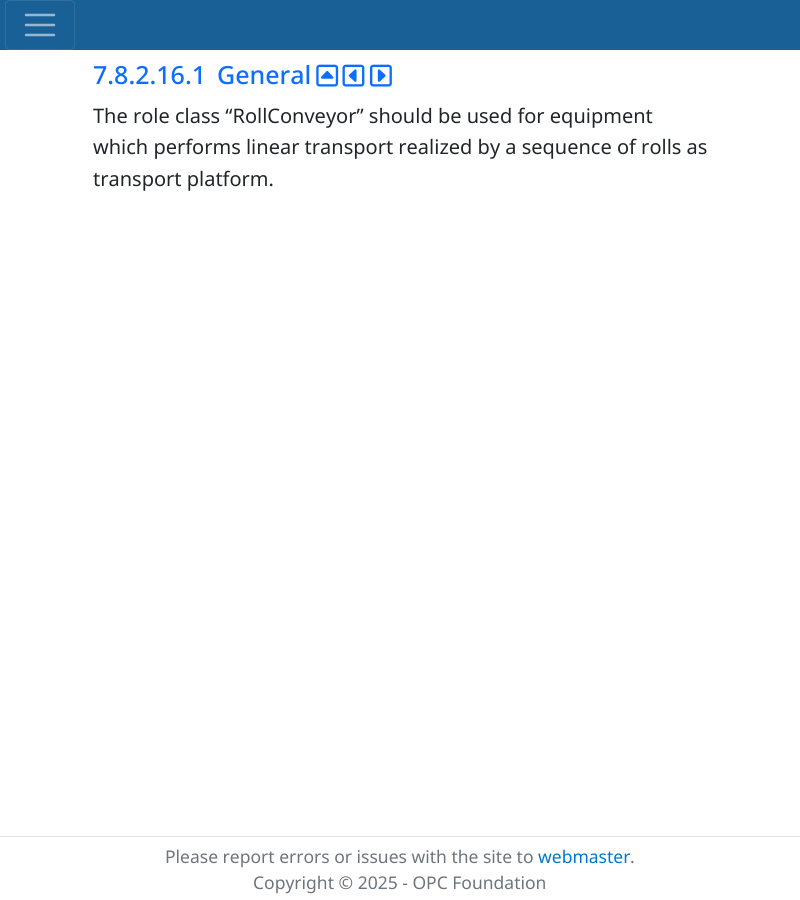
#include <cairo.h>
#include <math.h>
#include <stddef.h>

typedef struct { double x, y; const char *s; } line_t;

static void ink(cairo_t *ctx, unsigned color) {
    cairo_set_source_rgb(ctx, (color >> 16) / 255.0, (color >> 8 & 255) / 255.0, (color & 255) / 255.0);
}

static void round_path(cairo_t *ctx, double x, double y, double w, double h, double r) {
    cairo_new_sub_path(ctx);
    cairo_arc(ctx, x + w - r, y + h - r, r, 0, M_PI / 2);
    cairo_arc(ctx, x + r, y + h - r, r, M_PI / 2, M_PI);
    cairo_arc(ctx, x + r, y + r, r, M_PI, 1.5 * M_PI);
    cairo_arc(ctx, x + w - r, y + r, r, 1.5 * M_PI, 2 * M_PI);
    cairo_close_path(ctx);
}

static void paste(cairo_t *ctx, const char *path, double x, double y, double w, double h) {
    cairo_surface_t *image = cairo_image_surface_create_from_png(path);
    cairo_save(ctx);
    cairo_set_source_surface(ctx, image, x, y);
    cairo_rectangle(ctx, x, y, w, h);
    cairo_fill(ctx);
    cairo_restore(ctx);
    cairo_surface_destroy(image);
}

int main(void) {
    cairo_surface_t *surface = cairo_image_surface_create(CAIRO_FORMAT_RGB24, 800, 900);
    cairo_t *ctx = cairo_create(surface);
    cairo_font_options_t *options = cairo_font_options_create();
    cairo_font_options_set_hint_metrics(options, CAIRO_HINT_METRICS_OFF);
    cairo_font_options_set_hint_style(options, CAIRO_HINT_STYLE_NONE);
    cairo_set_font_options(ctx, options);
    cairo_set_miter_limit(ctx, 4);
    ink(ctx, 0xFFFFFF);
    cairo_paint(ctx);
    ink(ctx, 0x196096);
    cairo_rectangle(ctx, 0, 0, 800, 50);
    cairo_fill(ctx);
    round_path(ctx, 5.5, 0.5, 69, 49, 4.5);
    ink(ctx, 0x3070A1);
    cairo_set_line_width(ctx, 1);
    cairo_stroke(ctx);
    cairo_new_path(ctx);
    cairo_move_to(ctx, 26, 15);
    cairo_line_to(ctx, 54, 15);
    cairo_move_to(ctx, 26, 25);
    cairo_line_to(ctx, 54, 25);
    cairo_move_to(ctx, 26, 35);
    cairo_line_to(ctx, 54, 35);
    ink(ctx, 0x98B7D0);
    cairo_set_line_width(ctx, 2.5);
    cairo_set_line_cap(ctx, CAIRO_LINE_CAP_ROUND);
    cairo_stroke(ctx);
    cairo_select_font_face(ctx, "Noto Sans Medium", CAIRO_FONT_SLANT_NORMAL, CAIRO_FONT_WEIGHT_NORMAL);
    cairo_set_font_size(ctx, 25);
    ink(ctx, 0x0D6EFD);
    cairo_move_to(ctx, 93, 84);
    cairo_show_text(ctx, "7.8.2.16.1");
    cairo_move_to(ctx, 217, 84);
    cairo_show_text(ctx, "General");
    paste(ctx, "media/1.png", 316, 64, 23, 23);
    paste(ctx, "media/2.png", 342, 64, 23, 23);
    paste(ctx, "media/3.png", 370, 64, 22, 23);
    cairo_select_font_face(ctx, "Noto Sans", CAIRO_FONT_SLANT_NORMAL, CAIRO_FONT_WEIGHT_NORMAL);
    cairo_set_font_size(ctx, 20);
    ink(ctx, 0x212529);
    {
        static const line_t items[] = {
            {93, 123, "The role class “RollConveyor” should be used for equipment"},
            {93, 154, "which performs linear transport realized by a sequence of rolls as"},
            {93, 186, "transport platform."},
        };
        for (size_t i = 0; i < sizeof items / sizeof *items; i++) {
            cairo_move_to(ctx, items[i].x, items[i].y);
            cairo_show_text(ctx, items[i].s);
        }
    }
    ink(ctx, 0xDEE2E6);
    cairo_rectangle(ctx, 0, 836, 800, 1);
    cairo_fill(ctx);
    cairo_set_font_size(ctx, 17.5);
    ink(ctx, 0x6C757D);
    cairo_move_to(ctx, 165, 863);
    cairo_show_text(ctx, "Please report errors or issues with the site to");
    ink(ctx, 0x0077CC);
    cairo_move_to(ctx, 538, 863);
    cairo_show_text(ctx, "webmaster");
    ink(ctx, 0x6C757D);
    cairo_move_to(ctx, 630, 863);
    cairo_show_text(ctx, ".");
    cairo_move_to(ctx, 253, 889);
    cairo_show_text(ctx, "Copyright © 2025 - OPC Foundation");
    cairo_surface_write_to_png(surface, "image.png");
    cairo_font_options_destroy(options);
    cairo_destroy(ctx);
    cairo_surface_destroy(surface);
    return 0;
}
